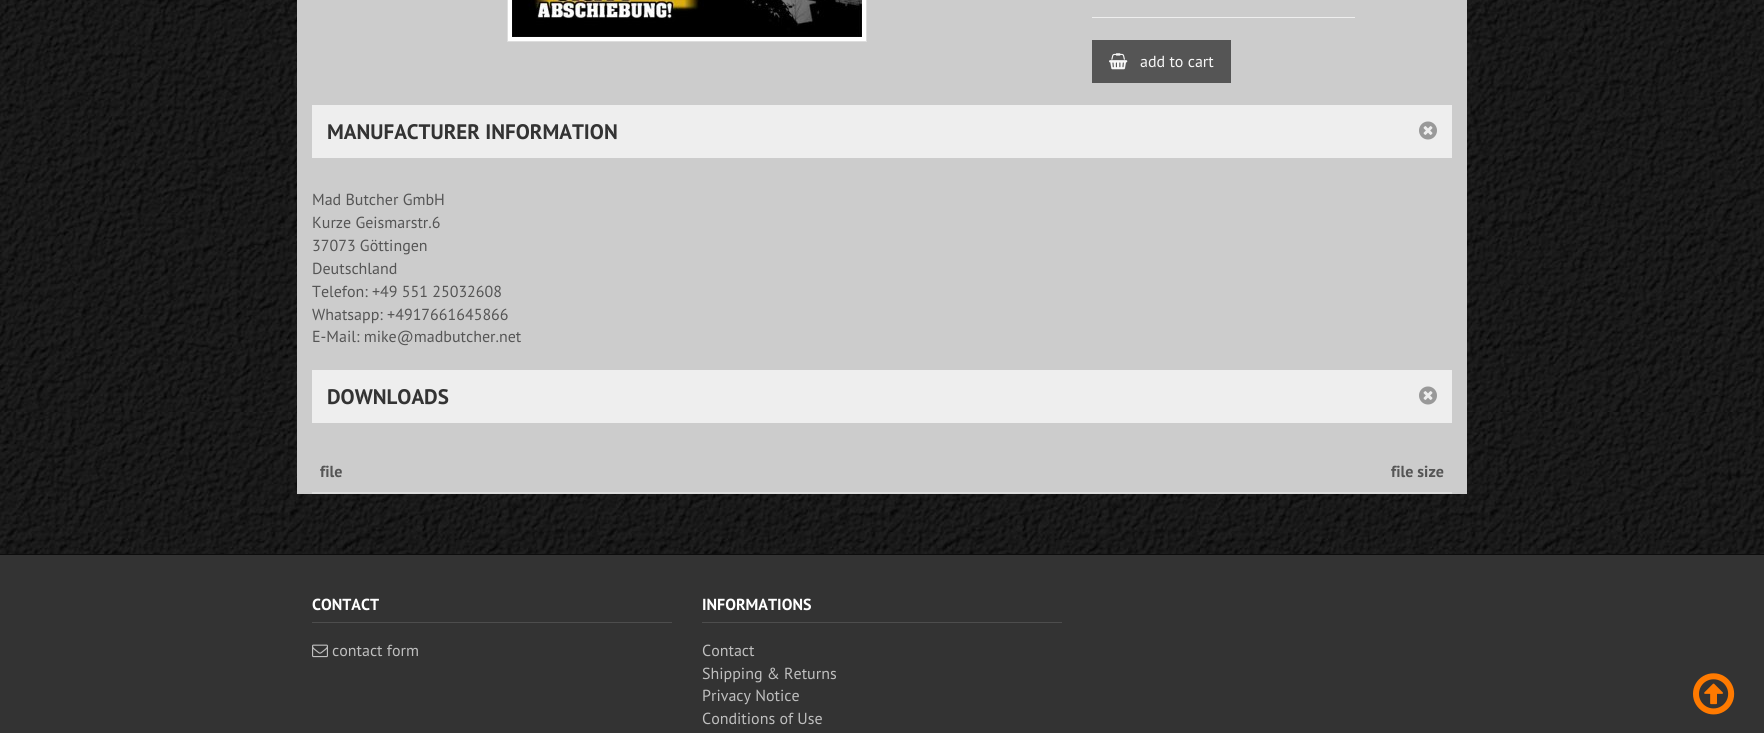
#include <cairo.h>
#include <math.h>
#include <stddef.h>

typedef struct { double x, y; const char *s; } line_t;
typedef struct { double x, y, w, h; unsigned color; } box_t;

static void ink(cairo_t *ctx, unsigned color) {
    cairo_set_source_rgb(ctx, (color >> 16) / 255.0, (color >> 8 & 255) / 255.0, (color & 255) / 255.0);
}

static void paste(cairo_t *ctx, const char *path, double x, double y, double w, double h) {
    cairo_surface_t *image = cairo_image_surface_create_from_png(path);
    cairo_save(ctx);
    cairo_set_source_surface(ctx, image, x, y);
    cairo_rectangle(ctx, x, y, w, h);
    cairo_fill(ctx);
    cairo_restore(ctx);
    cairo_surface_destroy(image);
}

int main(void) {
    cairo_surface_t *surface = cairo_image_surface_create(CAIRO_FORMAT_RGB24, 1764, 733);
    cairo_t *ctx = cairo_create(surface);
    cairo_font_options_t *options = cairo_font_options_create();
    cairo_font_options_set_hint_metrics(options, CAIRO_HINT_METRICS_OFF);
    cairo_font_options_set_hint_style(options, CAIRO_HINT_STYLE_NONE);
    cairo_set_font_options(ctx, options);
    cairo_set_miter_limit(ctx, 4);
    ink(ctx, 0xFFFFFF);
    cairo_paint(ctx);
    paste(ctx, "media/1.png", 0, 0, 1764, 554);
    ink(ctx, 0xCCCCCC);
    cairo_rectangle(ctx, 297, 0, 1170, 494);
    cairo_fill(ctx);
    ink(ctx, 0xFFFFFF);
    cairo_rectangle(ctx, 507.5, -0.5, 359, 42);
    cairo_fill_preserve(ctx);
    ink(ctx, 0xDDDDDD);
    cairo_set_line_width(ctx, 1);
    cairo_stroke(ctx);
    paste(ctx, "media/2.png", 512, 0, 350, 37);
    ink(ctx, 0xEEEEEE);
    cairo_rectangle(ctx, 1092, 17, 263, 1);
    cairo_fill(ctx);
    ink(ctx, 0x555555);
    cairo_rectangle(ctx, 1092, 40, 139, 43);
    cairo_fill(ctx);
    paste(ctx, "media/3.png", 1109, 53, 19, 17);
    cairo_select_font_face(ctx, "PT Sans", CAIRO_FONT_SLANT_NORMAL, CAIRO_FONT_WEIGHT_NORMAL);
    cairo_set_font_size(ctx, 16);
    ink(ctx, 0xF7F7F7);
    cairo_move_to(ctx, 1140, 67);
    cairo_show_text(ctx, "add to cart");
    ink(ctx, 0xEEEEEE);
    cairo_rectangle(ctx, 312, 105, 1140, 53);
    cairo_fill(ctx);
    cairo_select_font_face(ctx, "PT Sans", CAIRO_FONT_SLANT_NORMAL, CAIRO_FONT_WEIGHT_BOLD);
    cairo_set_font_size(ctx, 21);
    ink(ctx, 0x333333);
    cairo_move_to(ctx, 327, 139);
    cairo_show_text(ctx, "MANUFACTURER INFORMATION");
    paste(ctx, "media/4.png", 1419, 121, 18, 19);
    cairo_select_font_face(ctx, "PT Sans", CAIRO_FONT_SLANT_NORMAL, CAIRO_FONT_WEIGHT_NORMAL);
    cairo_set_font_size(ctx, 16);
    ink(ctx, 0x555555);
    {
        static const line_t items[] = {
            {312, 205, "Mad Butcher GmbH"},
            {312, 228, "Kurze Geismarstr.6"},
            {312, 251, "37073 Göttingen"},
            {312, 274, "Deutschland"},
            {312, 297, "Telefon: +49 551 25032608"},
            {312, 320, "Whatsapp: +4917661645866"},
            {312, 342, "E-Mail: mike@madbutcher.net"},
        };
        for (size_t i = 0; i < sizeof items / sizeof *items; i++) {
            cairo_move_to(ctx, items[i].x, items[i].y);
            cairo_show_text(ctx, items[i].s);
        }
    }
    ink(ctx, 0xEEEEEE);
    cairo_rectangle(ctx, 312, 370, 1140, 53);
    cairo_fill(ctx);
    cairo_select_font_face(ctx, "PT Sans", CAIRO_FONT_SLANT_NORMAL, CAIRO_FONT_WEIGHT_BOLD);
    cairo_set_font_size(ctx, 21);
    ink(ctx, 0x333333);
    cairo_move_to(ctx, 327, 404);
    cairo_show_text(ctx, "DOWNLOADS");
    paste(ctx, "media/4.png", 1419, 386, 18, 19);
    ink(ctx, 0xDDDDDD);
    cairo_rectangle(ctx, 312, 492, 1140, 2);
    cairo_fill(ctx);
    cairo_set_font_size(ctx, 16);
    ink(ctx, 0x555555);
    cairo_move_to(ctx, 320, 477);
    cairo_show_text(ctx, "file");
    cairo_move_to(ctx, 1391, 477);
    cairo_show_text(ctx, "file size");
    {
        static const box_t items[] = {
            {0, 555, 1764, 178, 0x333333},
            {0, 554, 1764, 1, 0x0D0D0D},
            {312, 622, 360, 1, 0x4D4D4D},
        };
        for (size_t i = 0; i < sizeof items / sizeof *items; i++) {
            ink(ctx, items[i].color);
            cairo_rectangle(ctx, items[i].x, items[i].y, items[i].w, items[i].h);
            cairo_fill(ctx);
        }
    }
    ink(ctx, 0xFFFFFF);
    cairo_move_to(ctx, 312, 610);
    cairo_show_text(ctx, "CONTACT");
    paste(ctx, "media/5.png", 312, 644, 16, 14);
    cairo_select_font_face(ctx, "PT Sans", CAIRO_FONT_SLANT_NORMAL, CAIRO_FONT_WEIGHT_NORMAL);
    ink(ctx, 0xBFBFBF);
    cairo_move_to(ctx, 332, 656);
    cairo_show_text(ctx, "contact form");
    ink(ctx, 0x4D4D4D);
    cairo_rectangle(ctx, 702, 622, 360, 1);
    cairo_fill(ctx);
    cairo_select_font_face(ctx, "PT Sans", CAIRO_FONT_SLANT_NORMAL, CAIRO_FONT_WEIGHT_BOLD);
    ink(ctx, 0xFFFFFF);
    cairo_move_to(ctx, 702, 610);
    cairo_show_text(ctx, "INFORMATIONS");
    cairo_select_font_face(ctx, "PT Sans", CAIRO_FONT_SLANT_NORMAL, CAIRO_FONT_WEIGHT_NORMAL);
    ink(ctx, 0xBFBFBF);
    {
        static const line_t items[] = {
            {702, 656, "Contact"},
            {702, 679, "Shipping & Returns"},
            {702, 701, "Privacy Notice"},
            {702, 724, "Conditions of Use"},
        };
        for (size_t i = 0; i < sizeof items / sizeof *items; i++) {
            cairo_move_to(ctx, items[i].x, items[i].y);
            cairo_show_text(ctx, items[i].s);
        }
    }
    paste(ctx, "media/6.png", 1693, 673, 42, 42);
    cairo_surface_write_to_png(surface, "image.png");
    cairo_font_options_destroy(options);
    cairo_destroy(ctx);
    cairo_surface_destroy(surface);
    return 0;
}
